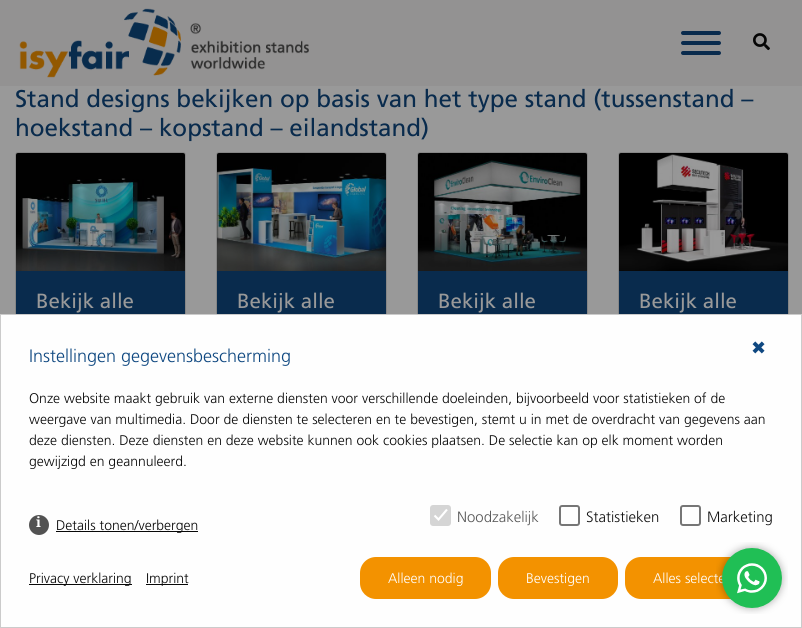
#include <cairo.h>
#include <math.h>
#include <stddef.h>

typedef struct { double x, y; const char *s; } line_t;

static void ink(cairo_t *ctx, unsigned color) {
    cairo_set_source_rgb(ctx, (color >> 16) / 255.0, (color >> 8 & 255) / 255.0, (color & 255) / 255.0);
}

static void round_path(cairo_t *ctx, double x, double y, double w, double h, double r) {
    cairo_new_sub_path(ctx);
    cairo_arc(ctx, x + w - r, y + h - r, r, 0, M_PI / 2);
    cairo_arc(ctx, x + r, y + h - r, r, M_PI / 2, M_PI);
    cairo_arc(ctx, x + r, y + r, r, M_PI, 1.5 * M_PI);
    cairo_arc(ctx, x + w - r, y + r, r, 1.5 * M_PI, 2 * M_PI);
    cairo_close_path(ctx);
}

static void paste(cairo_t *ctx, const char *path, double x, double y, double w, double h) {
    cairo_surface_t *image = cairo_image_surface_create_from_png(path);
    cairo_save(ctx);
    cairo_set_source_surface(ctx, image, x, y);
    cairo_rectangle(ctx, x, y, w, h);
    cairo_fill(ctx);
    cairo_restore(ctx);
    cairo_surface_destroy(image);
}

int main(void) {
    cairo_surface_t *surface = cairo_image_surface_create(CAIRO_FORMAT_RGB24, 802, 628);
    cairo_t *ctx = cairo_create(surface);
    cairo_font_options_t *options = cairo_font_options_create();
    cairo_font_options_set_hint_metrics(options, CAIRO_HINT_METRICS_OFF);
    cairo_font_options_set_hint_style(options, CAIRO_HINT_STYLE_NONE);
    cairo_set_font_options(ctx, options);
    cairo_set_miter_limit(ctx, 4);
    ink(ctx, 0x999999);
    cairo_paint(ctx);
    ink(ctx, 0x939292);
    cairo_rectangle(ctx, 0, 0, 802, 86);
    cairo_fill(ctx);
    paste(ctx, "media/1.png", 19, 8, 290, 70);
    ink(ctx, 0x092B4D);
    round_path(ctx, 681, 51, 40, 4, 2);
    cairo_fill(ctx);
    round_path(ctx, 681, 31, 40, 4, 2);
    cairo_fill(ctx);
    round_path(ctx, 681, 41, 40, 4, 2);
    cairo_fill(ctx);
    paste(ctx, "media/2.png", 753, 33, 17, 18);
    cairo_select_font_face(ctx, "Frutiger", CAIRO_FONT_SLANT_NORMAL, CAIRO_FONT_WEIGHT_NORMAL);
    cairo_set_font_size(ctx, 24.2);
    cairo_move_to(ctx, 15, 107);
    cairo_show_text(ctx, "Stand designs bekijken op basis van het type stand (tussenstand –");
    cairo_move_to(ctx, 15, 136);
    cairo_show_text(ctx, "hoekstand – kopstand – eilandstand)");
    round_path(ctx, 15.5, 152.5, 170, 268, 2.5);
    ink(ctx, 0x868686);
    cairo_set_line_width(ctx, 1);
    cairo_stroke(ctx);
    paste(ctx, "media/3.png", 16, 153, 169, 118);
    ink(ctx, 0x092B4D);
    cairo_rectangle(ctx, 16, 271, 169, 43);
    cairo_fill(ctx);
    cairo_set_font_size(ctx, 20.5);
    ink(ctx, 0x999999);
    cairo_move_to(ctx, 36, 308);
    cairo_show_text(ctx, "Bekijk alle");
    round_path(ctx, 216.5, 152.5, 170, 268, 2.5);
    ink(ctx, 0x868686);
    cairo_stroke(ctx);
    paste(ctx, "media/4.png", 217, 153, 169, 118);
    ink(ctx, 0x092B4D);
    cairo_rectangle(ctx, 217, 271, 169, 43);
    cairo_fill(ctx);
    ink(ctx, 0x999999);
    cairo_move_to(ctx, 237, 308);
    cairo_show_text(ctx, "Bekijk alle");
    round_path(ctx, 417.5, 152.5, 170, 268, 2.5);
    ink(ctx, 0x868686);
    cairo_stroke(ctx);
    paste(ctx, "media/5.png", 418, 153, 169, 118);
    ink(ctx, 0x092B4D);
    cairo_rectangle(ctx, 418, 271, 169, 43);
    cairo_fill(ctx);
    ink(ctx, 0x999999);
    cairo_move_to(ctx, 438, 308);
    cairo_show_text(ctx, "Bekijk alle");
    round_path(ctx, 618.5, 152.5, 170, 268, 2.5);
    ink(ctx, 0x868686);
    cairo_stroke(ctx);
    paste(ctx, "media/6.png", 619, 153, 169, 118);
    ink(ctx, 0x092B4D);
    cairo_rectangle(ctx, 619, 271, 169, 43);
    cairo_fill(ctx);
    ink(ctx, 0x999999);
    cairo_move_to(ctx, 639, 308);
    cairo_show_text(ctx, "Bekijk alle");
    ink(ctx, 0xFEFEFE);
    cairo_rectangle(ctx, 0.5, 314.5, 801, 313);
    cairo_fill_preserve(ctx);
    ink(ctx, 0xCBCBCB);
    cairo_stroke(ctx);
    cairo_select_font_face(ctx, "DejaVu Sans", CAIRO_FONT_SLANT_NORMAL, CAIRO_FONT_WEIGHT_NORMAL);
    cairo_set_font_size(ctx, 18);
    ink(ctx, 0x0F4881);
    cairo_move_to(ctx, 751, 354);
    cairo_show_text(ctx, "✖");
    cairo_select_font_face(ctx, "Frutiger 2", CAIRO_FONT_SLANT_NORMAL, CAIRO_FONT_WEIGHT_NORMAL);
    cairo_move_to(ctx, 29, 362);
    cairo_show_text(ctx, "Instellingen gegevensbescherming");
    cairo_set_font_size(ctx, 14);
    ink(ctx, 0x080808);
    {
        static const line_t items[] = {
            {29, 403, "Onze website maakt gebruik van externe diensten voor verschillende doeleinden, bijvoorbeeld voor statistieken of de"},
            {29, 424, "weergave van multimedia. Door de diensten te selecteren en te bevestigen, stemt u in met de overdracht van gegevens aan"},
            {29, 445, "deze diensten. Deze diensten en deze website kunnen ook cookies plaatsen. De selectie kan op elk moment worden"},
            {29, 466, "gewijzigd en geannuleerd."},
        };
        for (size_t i = 0; i < sizeof items / sizeof *items; i++) {
            cairo_move_to(ctx, items[i].x, items[i].y);
            cairo_show_text(ctx, items[i].s);
        }
    }
    ink(ctx, 0x525252);
    cairo_new_path(ctx);
    cairo_arc(ctx, 39, 525, 10, 0, 2 * M_PI);
    cairo_fill(ctx);
    cairo_select_font_face(ctx, "Noto Serif", CAIRO_FONT_SLANT_NORMAL, CAIRO_FONT_WEIGHT_BOLD);
    ink(ctx, 0xFFFFFF);
    cairo_move_to(ctx, 36, 527);
    cairo_show_text(ctx, "i");
    ink(ctx, 0x080808);
    cairo_rectangle(ctx, 56, 531, 142, 1);
    cairo_fill(ctx);
    cairo_select_font_face(ctx, "Frutiger 2", CAIRO_FONT_SLANT_NORMAL, CAIRO_FONT_WEIGHT_NORMAL);
    cairo_move_to(ctx, 56, 530);
    cairo_show_text(ctx, "Details tonen/verbergen");
    ink(ctx, 0xD5D5D5);
    round_path(ctx, 430, 505, 21, 21, 3);
    cairo_fill(ctx);
    cairo_new_path(ctx);
    cairo_move_to(ctx, 434.5, 515.5);
    cairo_line_to(ctx, 438.5, 519.5);
    cairo_line_to(ctx, 447, 509.5);
    ink(ctx, 0xFFFFFF);
    cairo_set_line_width(ctx, 2.1);
    cairo_stroke(ctx);
    cairo_set_font_size(ctx, 15);
    ink(ctx, 0x585858);
    cairo_move_to(ctx, 457, 522);
    cairo_show_text(ctx, "Noodzakelijk");
    round_path(ctx, 560, 506, 19, 19, 2);
    ink(ctx, 0x767676);
    cairo_set_line_width(ctx, 2);
    cairo_stroke(ctx);
    ink(ctx, 0x111111);
    cairo_move_to(ctx, 586, 522);
    cairo_show_text(ctx, "Statistieken");
    round_path(ctx, 681, 506, 19, 19, 2);
    ink(ctx, 0x767676);
    cairo_stroke(ctx);
    ink(ctx, 0x111111);
    cairo_move_to(ctx, 707, 522);
    cairo_show_text(ctx, "Marketing");
    ink(ctx, 0x080808);
    cairo_rectangle(ctx, 29, 584, 103, 1);
    cairo_fill(ctx);
    cairo_set_font_size(ctx, 14);
    cairo_move_to(ctx, 29, 583);
    cairo_show_text(ctx, "Privacy verklaring");
    cairo_rectangle(ctx, 146, 584, 42, 1);
    cairo_fill(ctx);
    cairo_move_to(ctx, 146, 583);
    cairo_show_text(ctx, "Imprint");
    ink(ctx, 0xF39200);
    round_path(ctx, 360, 557, 131, 42, 16);
    cairo_fill(ctx);
    ink(ctx, 0xFFFFFF);
    cairo_move_to(ctx, 388, 583);
    cairo_show_text(ctx, "Alleen nodig");
    ink(ctx, 0xF39200);
    round_path(ctx, 498, 557, 120, 42, 16);
    cairo_fill(ctx);
    ink(ctx, 0xFFFFFF);
    cairo_move_to(ctx, 526, 583);
    cairo_show_text(ctx, "Bevestigen");
    ink(ctx, 0xF39200);
    round_path(ctx, 625, 557, 148, 42, 16);
    cairo_fill(ctx);
    ink(ctx, 0xFFFFFF);
    cairo_move_to(ctx, 653, 583);
    cairo_show_text(ctx, "Alles selecte");
    paste(ctx, "media/7.png", 716, 542, 72, 72);
    cairo_surface_write_to_png(surface, "image.png");
    cairo_font_options_destroy(options);
    cairo_destroy(ctx);
    cairo_surface_destroy(surface);
    return 0;
}
